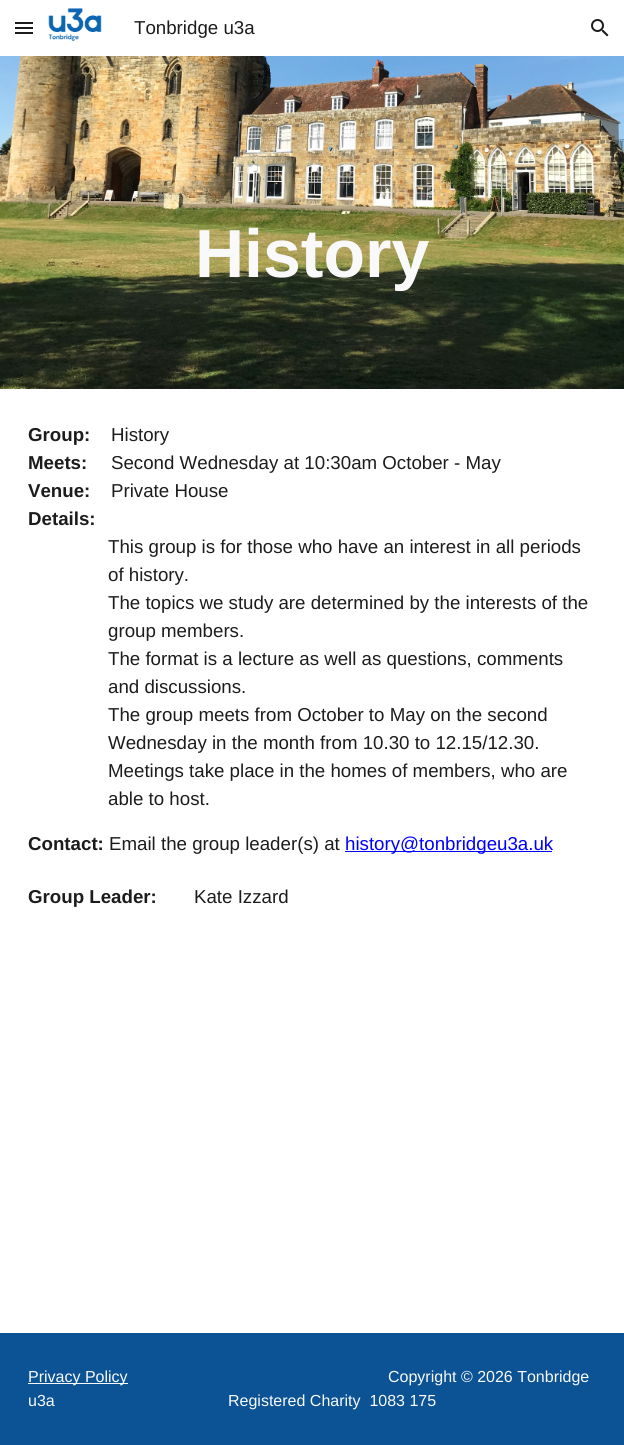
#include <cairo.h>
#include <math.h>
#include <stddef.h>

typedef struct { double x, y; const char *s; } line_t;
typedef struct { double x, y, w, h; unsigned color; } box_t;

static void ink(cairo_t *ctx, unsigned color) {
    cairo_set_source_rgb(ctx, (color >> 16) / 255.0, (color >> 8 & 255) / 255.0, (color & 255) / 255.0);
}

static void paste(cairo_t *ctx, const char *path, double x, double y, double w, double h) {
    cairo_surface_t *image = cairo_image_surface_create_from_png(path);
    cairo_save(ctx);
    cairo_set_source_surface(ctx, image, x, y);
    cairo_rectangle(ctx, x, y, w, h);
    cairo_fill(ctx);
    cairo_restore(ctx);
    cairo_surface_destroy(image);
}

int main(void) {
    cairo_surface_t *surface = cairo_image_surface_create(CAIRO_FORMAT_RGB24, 624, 1445);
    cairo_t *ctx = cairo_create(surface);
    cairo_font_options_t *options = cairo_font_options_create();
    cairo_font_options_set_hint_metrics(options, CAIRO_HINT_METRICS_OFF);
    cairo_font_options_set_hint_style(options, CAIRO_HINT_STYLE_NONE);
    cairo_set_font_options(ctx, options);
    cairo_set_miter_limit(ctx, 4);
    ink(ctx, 0xFFFFFF);
    cairo_paint(ctx);
    {
        static const box_t items[] = {
            {15, 22, 18, 2, 0x1C1C1C},
            {15, 27, 18, 2, 0x1C1C1C},
            {15, 32, 18, 2, 0x1C1C1C},
        };
        for (size_t i = 0; i < sizeof items / sizeof *items; i++) {
            ink(ctx, items[i].color);
            cairo_rectangle(ctx, items[i].x, items[i].y, items[i].w, items[i].h);
            cairo_fill(ctx);
        }
    }
    paste(ctx, "media/1.png", 48, 8, 54, 33);
    cairo_select_font_face(ctx, "Liberation Sans", CAIRO_FONT_SLANT_NORMAL, CAIRO_FONT_WEIGHT_NORMAL);
    cairo_set_font_size(ctx, 18.7);
    cairo_move_to(ctx, 134, 34);
    cairo_show_text(ctx, "Tonbridge u3a");
    paste(ctx, "media/2.png", 591, 19, 18, 18);
    paste(ctx, "media/3.png", 0, 56, 624, 333);
    cairo_select_font_face(ctx, "Liberation Sans", CAIRO_FONT_SLANT_NORMAL, CAIRO_FONT_WEIGHT_BOLD);
    cairo_set_font_size(ctx, 68);
    ink(ctx, 0xF9F9F9);
    cairo_move_to(ctx, 195, 277);
    cairo_show_text(ctx, "History");
    cairo_set_font_size(ctx, 18.7);
    ink(ctx, 0x1C1C1C);
    cairo_move_to(ctx, 28, 441);
    cairo_show_text(ctx, "Group:");
    cairo_select_font_face(ctx, "Liberation Sans", CAIRO_FONT_SLANT_NORMAL, CAIRO_FONT_WEIGHT_NORMAL);
    cairo_move_to(ctx, 111, 441);
    cairo_show_text(ctx, "History");
    cairo_select_font_face(ctx, "Liberation Sans", CAIRO_FONT_SLANT_NORMAL, CAIRO_FONT_WEIGHT_BOLD);
    cairo_move_to(ctx, 28, 469);
    cairo_show_text(ctx, "Meets:");
    cairo_select_font_face(ctx, "Liberation Sans", CAIRO_FONT_SLANT_NORMAL, CAIRO_FONT_WEIGHT_NORMAL);
    cairo_move_to(ctx, 111, 469);
    cairo_show_text(ctx, "Second Wednesday at 10:30am October - May");
    cairo_select_font_face(ctx, "Liberation Sans", CAIRO_FONT_SLANT_NORMAL, CAIRO_FONT_WEIGHT_BOLD);
    cairo_move_to(ctx, 28, 497);
    cairo_show_text(ctx, "Venue:");
    cairo_select_font_face(ctx, "Liberation Sans", CAIRO_FONT_SLANT_NORMAL, CAIRO_FONT_WEIGHT_NORMAL);
    cairo_move_to(ctx, 111, 497);
    cairo_show_text(ctx, "Private House");
    cairo_select_font_face(ctx, "Liberation Sans", CAIRO_FONT_SLANT_NORMAL, CAIRO_FONT_WEIGHT_BOLD);
    cairo_move_to(ctx, 28, 525);
    cairo_show_text(ctx, "Details:");
    cairo_select_font_face(ctx, "Liberation Sans", CAIRO_FONT_SLANT_NORMAL, CAIRO_FONT_WEIGHT_NORMAL);
    {
        static const line_t items[] = {
            {108, 553, "This group is for those who have an interest in all periods"},
            {108, 581, "of history."},
            {108, 609, "The topics we study are determined by the interests of the"},
            {108, 637, "group members."},
            {108, 665, "The format is a lecture as well as questions, comments"},
            {108, 693, "and discussions."},
            {108, 721, "The group meets from October to May on the second"},
            {108, 749, "Wednesday in the month from 10.30 to 12.15/12.30."},
            {108, 777, "Meetings take place in the homes of members, who are"},
            {108, 805, "able to host."},
        };
        for (size_t i = 0; i < sizeof items / sizeof *items; i++) {
            cairo_move_to(ctx, items[i].x, items[i].y);
            cairo_show_text(ctx, items[i].s);
        }
    }
    cairo_select_font_face(ctx, "Liberation Sans", CAIRO_FONT_SLANT_NORMAL, CAIRO_FONT_WEIGHT_BOLD);
    cairo_move_to(ctx, 28, 850);
    cairo_show_text(ctx, "Contact:");
    cairo_select_font_face(ctx, "Liberation Sans", CAIRO_FONT_SLANT_NORMAL, CAIRO_FONT_WEIGHT_NORMAL);
    cairo_move_to(ctx, 109, 850);
    cairo_show_text(ctx, "Email the group leader(s) at");
    ink(ctx, 0x0000FF);
    cairo_rectangle(ctx, 345, 851, 207, 1);
    cairo_fill(ctx);
    cairo_move_to(ctx, 345, 850);
    cairo_show_text(ctx, "history@tonbridgeu3a.uk");
    cairo_select_font_face(ctx, "Liberation Sans", CAIRO_FONT_SLANT_NORMAL, CAIRO_FONT_WEIGHT_BOLD);
    ink(ctx, 0x1C1C1C);
    cairo_move_to(ctx, 28, 903);
    cairo_show_text(ctx, "Group Leader:");
    cairo_select_font_face(ctx, "Liberation Sans", CAIRO_FONT_SLANT_NORMAL, CAIRO_FONT_WEIGHT_NORMAL);
    cairo_move_to(ctx, 194, 903);
    cairo_show_text(ctx, "Kate Izzard");
    ink(ctx, 0x0B5394);
    cairo_rectangle(ctx, 0, 1333, 624, 112);
    cairo_fill(ctx);
    ink(ctx, 0xF9F9F9);
    cairo_rectangle(ctx, 28, 1383, 100, 1);
    cairo_fill(ctx);
    cairo_set_font_size(ctx, 16);
    {
        static const line_t items[] = {
            {28, 1382, "Privacy Policy"},
            {388, 1382, "Copyright © 2026 Tonbridge"},
            {28, 1406, "u3a"},
            {228, 1406, "Registered Charity  1083 175"},
        };
        for (size_t i = 0; i < sizeof items / sizeof *items; i++) {
            cairo_move_to(ctx, items[i].x, items[i].y);
            cairo_show_text(ctx, items[i].s);
        }
    }
    cairo_surface_write_to_png(surface, "image.png");
    cairo_font_options_destroy(options);
    cairo_destroy(ctx);
    cairo_surface_destroy(surface);
    return 0;
}
